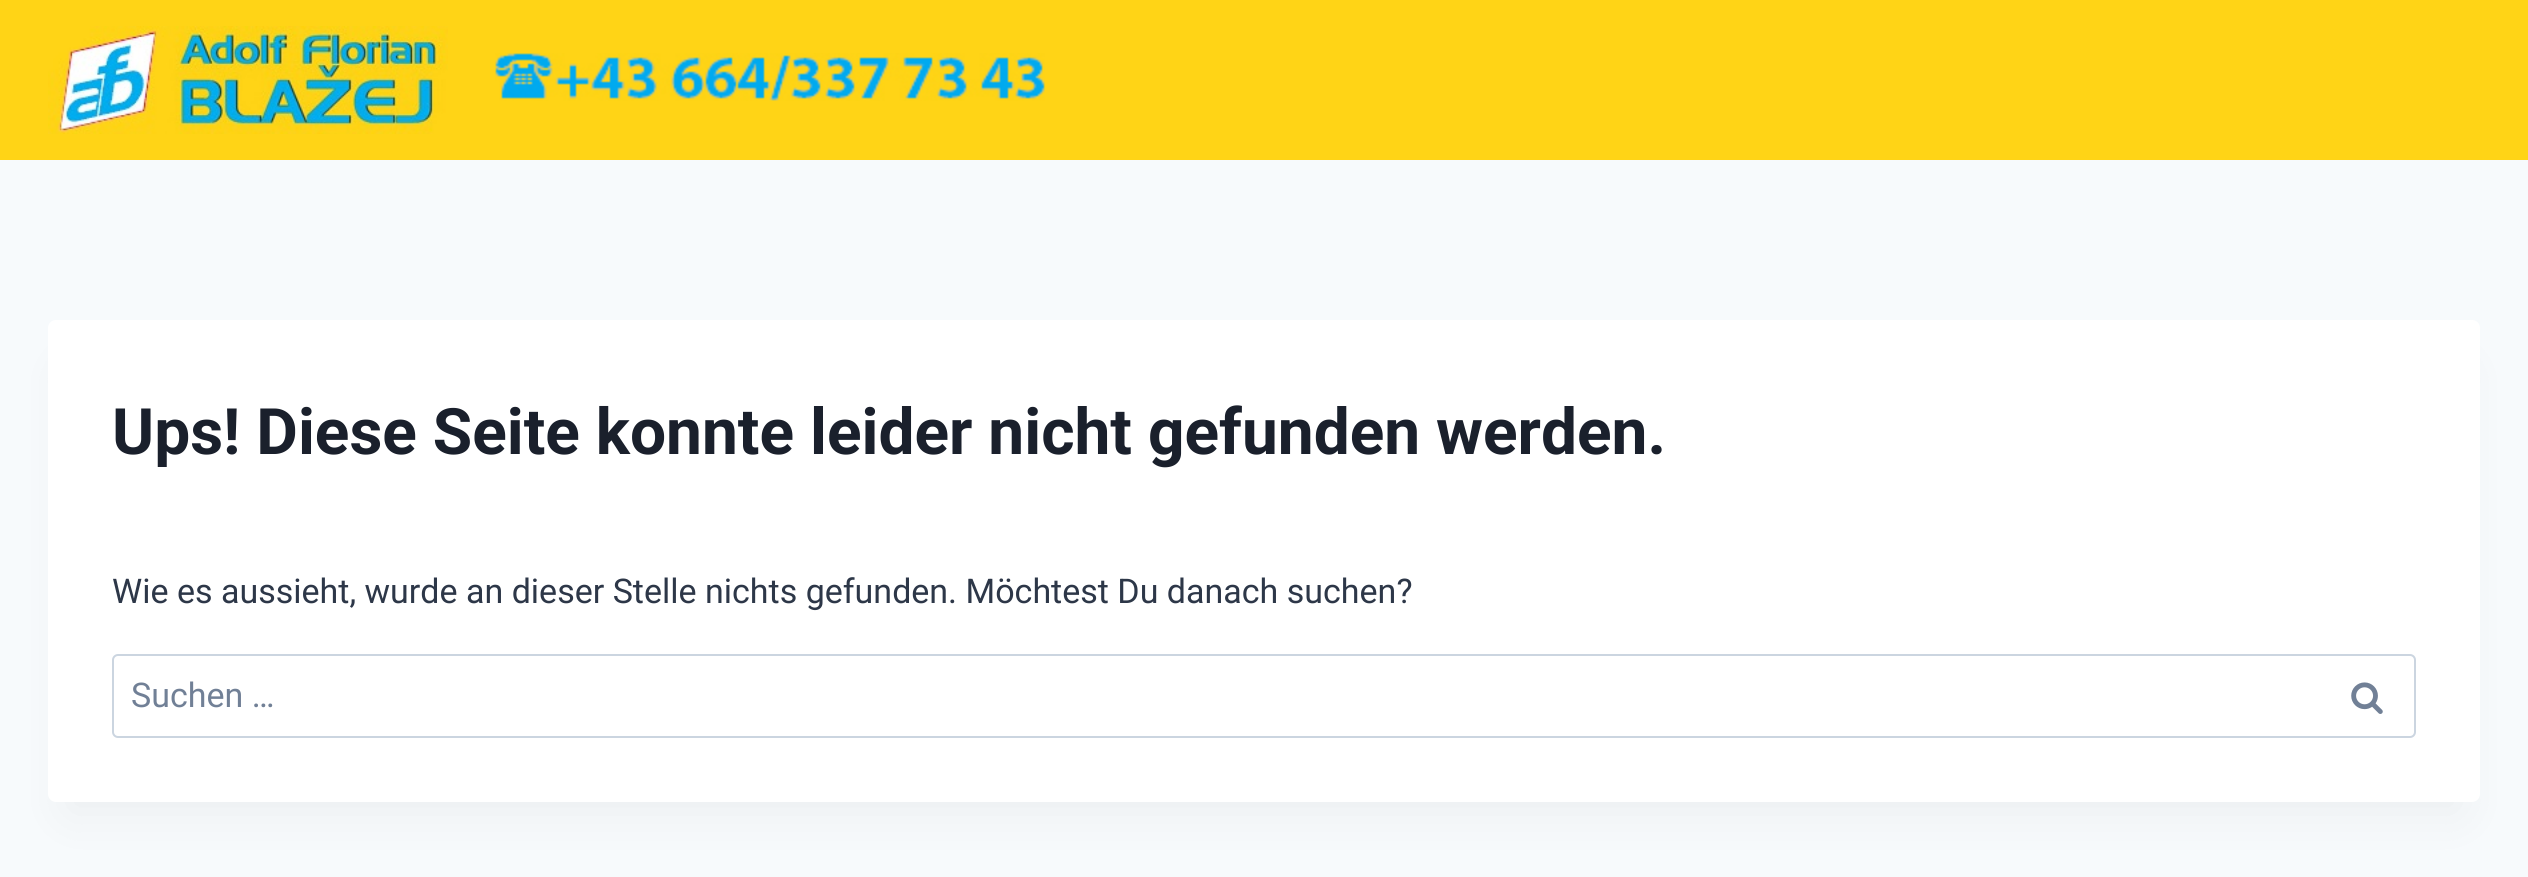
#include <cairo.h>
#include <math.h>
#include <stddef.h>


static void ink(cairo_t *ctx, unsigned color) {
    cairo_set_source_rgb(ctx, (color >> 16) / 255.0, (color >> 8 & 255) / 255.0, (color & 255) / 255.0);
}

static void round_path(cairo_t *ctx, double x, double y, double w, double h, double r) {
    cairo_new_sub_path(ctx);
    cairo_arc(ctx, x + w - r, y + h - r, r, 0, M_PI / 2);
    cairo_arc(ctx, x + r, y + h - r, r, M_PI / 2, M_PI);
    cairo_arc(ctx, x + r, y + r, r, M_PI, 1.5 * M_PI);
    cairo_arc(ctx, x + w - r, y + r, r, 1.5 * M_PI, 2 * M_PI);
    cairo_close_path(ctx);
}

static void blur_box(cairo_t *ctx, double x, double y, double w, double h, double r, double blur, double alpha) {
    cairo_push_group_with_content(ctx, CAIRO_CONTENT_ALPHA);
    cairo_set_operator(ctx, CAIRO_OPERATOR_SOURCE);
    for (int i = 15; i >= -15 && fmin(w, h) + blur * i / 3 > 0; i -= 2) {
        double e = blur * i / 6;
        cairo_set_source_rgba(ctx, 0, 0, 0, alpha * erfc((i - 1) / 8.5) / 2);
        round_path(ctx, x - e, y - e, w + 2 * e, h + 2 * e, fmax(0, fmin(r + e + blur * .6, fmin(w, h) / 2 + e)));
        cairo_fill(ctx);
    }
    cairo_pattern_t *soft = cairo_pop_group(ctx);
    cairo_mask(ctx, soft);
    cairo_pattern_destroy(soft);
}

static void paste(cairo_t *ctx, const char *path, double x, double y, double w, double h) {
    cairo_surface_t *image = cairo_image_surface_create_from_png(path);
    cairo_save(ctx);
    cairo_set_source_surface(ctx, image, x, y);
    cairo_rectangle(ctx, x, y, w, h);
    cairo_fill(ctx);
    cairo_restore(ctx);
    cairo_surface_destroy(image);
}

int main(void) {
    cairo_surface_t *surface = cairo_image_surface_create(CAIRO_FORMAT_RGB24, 2528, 877);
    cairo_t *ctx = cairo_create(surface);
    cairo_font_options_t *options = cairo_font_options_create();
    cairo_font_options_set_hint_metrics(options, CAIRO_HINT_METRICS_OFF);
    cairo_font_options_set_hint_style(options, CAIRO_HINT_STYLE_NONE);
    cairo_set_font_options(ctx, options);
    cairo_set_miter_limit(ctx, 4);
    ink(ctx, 0xF7FAFC);
    cairo_paint(ctx);
    ink(ctx, 0xFFD416);
    cairo_rectangle(ctx, 0, 0, 2528, 160);
    cairo_fill(ctx);
    paste(ctx, "media/1.png", 48, 26, 400, 108);
    paste(ctx, "media/2.png", 495, 53, 550, 48);
    ink(ctx, 0x000000);
    blur_box(ctx, 68, 370, 2392, 442, 0, 25, 0.05);
    ink(ctx, 0xFFFFFF);
    round_path(ctx, 48, 320, 2432, 482, 8);
    cairo_fill(ctx);
    cairo_select_font_face(ctx, "Roboto", CAIRO_FONT_SLANT_NORMAL, CAIRO_FONT_WEIGHT_BOLD);
    cairo_set_font_size(ctx, 64);
    ink(ctx, 0x1A202C);
    cairo_move_to(ctx, 112, 454);
    cairo_show_text(ctx, "Ups! Diese Seite konnte leider nicht gefunden werden.");
    cairo_select_font_face(ctx, "Roboto", CAIRO_FONT_SLANT_NORMAL, CAIRO_FONT_WEIGHT_NORMAL);
    cairo_set_font_size(ctx, 34);
    ink(ctx, 0x2D3748);
    cairo_move_to(ctx, 112, 603);
    cairo_show_text(ctx, "Wie es aussieht, wurde an dieser Stelle nichts gefunden. Möchtest Du danach suchen?");
    round_path(ctx, 113, 655, 2302, 82, 5);
    ink(ctx, 0xCBD5E0);
    cairo_stroke(ctx);
    ink(ctx, 0x718096);
    cairo_move_to(ctx, 131, 707);
    cairo_show_text(ctx, "Suchen …");
    paste(ctx, "media/3.png", 2351, 682, 32, 32);
    cairo_surface_write_to_png(surface, "image.png");
    cairo_font_options_destroy(options);
    cairo_destroy(ctx);
    cairo_surface_destroy(surface);
    return 0;
}
